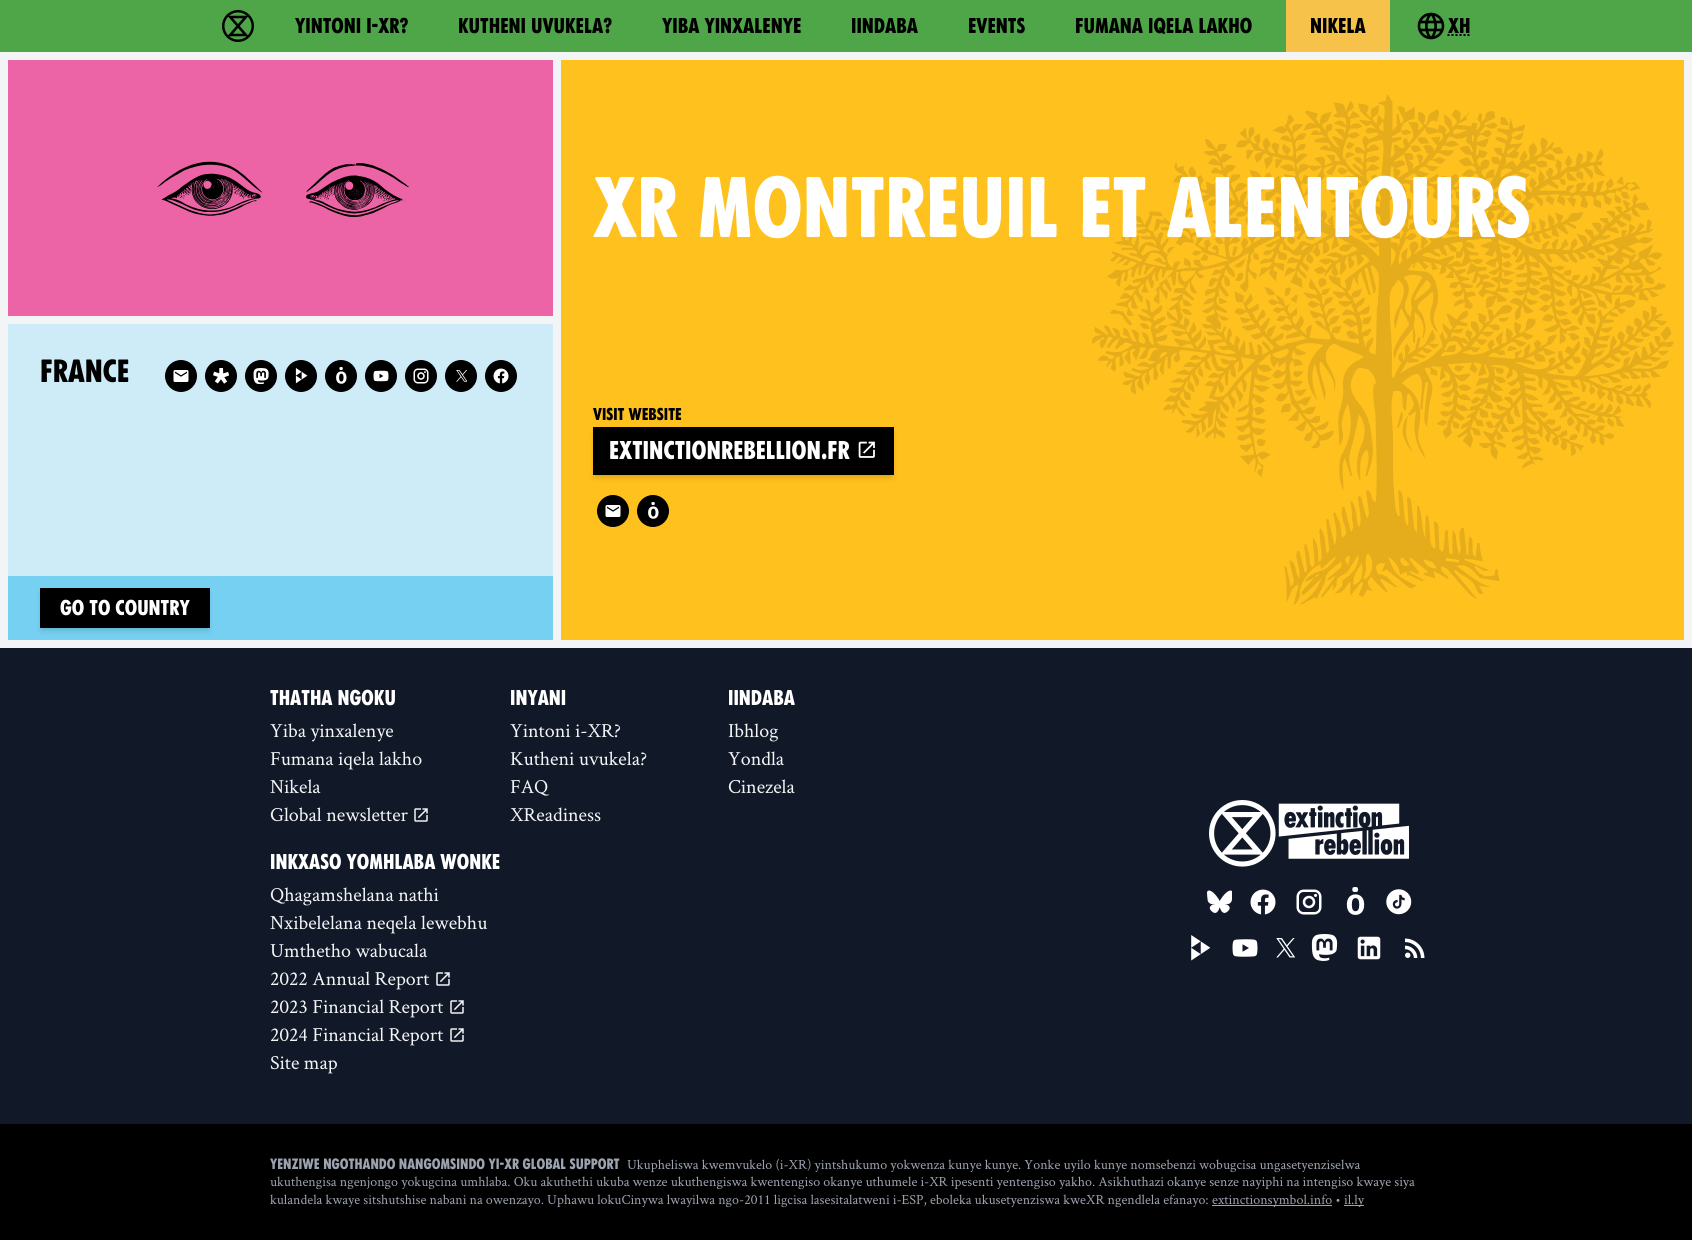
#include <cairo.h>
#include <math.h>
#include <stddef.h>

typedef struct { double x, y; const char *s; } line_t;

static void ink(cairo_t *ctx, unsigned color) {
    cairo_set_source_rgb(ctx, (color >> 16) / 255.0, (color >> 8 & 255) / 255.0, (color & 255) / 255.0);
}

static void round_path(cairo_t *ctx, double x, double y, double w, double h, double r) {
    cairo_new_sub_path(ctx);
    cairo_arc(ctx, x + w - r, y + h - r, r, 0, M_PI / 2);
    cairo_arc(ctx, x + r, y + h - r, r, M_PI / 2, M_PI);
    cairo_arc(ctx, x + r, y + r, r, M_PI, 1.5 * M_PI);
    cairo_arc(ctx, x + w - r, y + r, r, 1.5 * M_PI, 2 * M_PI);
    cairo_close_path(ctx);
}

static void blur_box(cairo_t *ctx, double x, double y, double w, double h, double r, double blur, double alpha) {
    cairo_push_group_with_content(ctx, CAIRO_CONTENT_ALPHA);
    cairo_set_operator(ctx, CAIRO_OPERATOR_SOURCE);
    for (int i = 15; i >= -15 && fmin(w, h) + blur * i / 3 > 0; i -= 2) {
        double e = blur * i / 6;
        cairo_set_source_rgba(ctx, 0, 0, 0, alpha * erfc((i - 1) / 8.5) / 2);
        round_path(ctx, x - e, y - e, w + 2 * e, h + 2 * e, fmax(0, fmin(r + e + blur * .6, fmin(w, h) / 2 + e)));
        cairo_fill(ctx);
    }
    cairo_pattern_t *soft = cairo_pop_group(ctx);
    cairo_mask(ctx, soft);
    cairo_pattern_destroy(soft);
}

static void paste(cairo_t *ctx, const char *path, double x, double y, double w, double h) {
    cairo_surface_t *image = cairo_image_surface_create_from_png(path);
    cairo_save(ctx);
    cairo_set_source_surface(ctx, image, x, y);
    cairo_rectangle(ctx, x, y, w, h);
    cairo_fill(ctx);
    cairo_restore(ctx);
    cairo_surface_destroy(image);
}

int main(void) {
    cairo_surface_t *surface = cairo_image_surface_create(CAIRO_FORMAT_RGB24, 1692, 1240);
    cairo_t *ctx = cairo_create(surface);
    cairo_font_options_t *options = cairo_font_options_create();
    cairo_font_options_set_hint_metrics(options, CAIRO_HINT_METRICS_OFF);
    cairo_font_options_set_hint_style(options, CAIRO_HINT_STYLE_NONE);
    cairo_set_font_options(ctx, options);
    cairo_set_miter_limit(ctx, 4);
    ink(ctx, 0xF3F4F6);
    cairo_paint(ctx);
    ink(ctx, 0x4EA648);
    cairo_rectangle(ctx, 0, 0, 1692, 52);
    cairo_fill(ctx);
    paste(ctx, "media/1.png", 222, 10, 32, 32);
    cairo_select_font_face(ctx, "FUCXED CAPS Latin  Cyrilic", CAIRO_FONT_SLANT_NORMAL, CAIRO_FONT_WEIGHT_NORMAL);
    cairo_set_font_size(ctx, 20);
    ink(ctx, 0x000000);
    {
        static const line_t items[] = {
            {295, 33, "YINTONI I-XR?"},
            {458, 33, "KUTHENI UVUKELA?"},
            {662, 33, "YIBA YINXALENYE"},
            {851, 33, "IINDABA"},
            {968, 33, "EVENTS"},
            {1075, 33, "FUMANA IQELA LAKHO"},
        };
        for (size_t i = 0; i < sizeof items / sizeof *items; i++) {
            cairo_move_to(ctx, items[i].x, items[i].y);
            cairo_show_text(ctx, items[i].s);
        }
    }
    ink(ctx, 0xF6C24A);
    cairo_rectangle(ctx, 1286, 0, 104, 52);
    cairo_fill(ctx);
    ink(ctx, 0x000000);
    cairo_move_to(ctx, 1310, 33);
    cairo_show_text(ctx, "NIKELA");
    paste(ctx, "media/2.png", 1417, 12, 28, 28);
    cairo_move_to(ctx, 1448, 33);
    cairo_show_text(ctx, "xh");
    cairo_new_path(ctx);
    cairo_move_to(ctx, 1447.5, 35);
    cairo_line_to(ctx, 1470, 35);
    cairo_set_dash(ctx, (double[]){2, 2}, 2, 0);
    cairo_stroke(ctx);
    ink(ctx, 0xFFC11E);
    cairo_rectangle(ctx, 561, 60, 1123, 580);
    cairo_fill(ctx);
    paste(ctx, "media/3.png", 1092, 94, 582, 512);
    cairo_set_font_size(ctx, 80);
    ink(ctx, 0xFFFFFF);
    cairo_move_to(ctx, 593, 237);
    cairo_show_text(ctx, "XR MONTREUIL ET ALENTOURS");
    cairo_set_font_size(ctx, 16);
    ink(ctx, 0x000000);
    cairo_move_to(ctx, 593, 420);
    cairo_show_text(ctx, "Visit website");
    ink(ctx, 0x000000);
    blur_box(ctx, 595, 431, 297, 44, 0, 2, 0.1);
    blur_box(ctx, 594, 432, 299, 46, 0, 3, 0.1);
    ink(ctx, 0x000000);
    cairo_rectangle(ctx, 593, 427, 301, 48);
    cairo_fill(ctx);
    cairo_set_font_size(ctx, 24);
    ink(ctx, 0xFFFFFF);
    cairo_move_to(ctx, 609, 459);
    cairo_show_text(ctx, "extinctionrebellion.fr");
    paste(ctx, "media/4.png", 858, 441, 17, 17);
    ink(ctx, 0x000000);
    cairo_arc(ctx, 613, 511, 15, 0, 2 * M_PI);
    cairo_fill_preserve(ctx);
    cairo_set_dash(ctx, NULL, 0, 0);
    cairo_stroke(ctx);
    paste(ctx, "media/5.png", 605, 505, 16, 12);
    cairo_arc(ctx, 653, 511, 15, 0, 2 * M_PI);
    cairo_fill_preserve(ctx);
    cairo_stroke(ctx);
    paste(ctx, "media/6.png", 648, 502, 11, 17);
    ink(ctx, 0xED64A6);
    cairo_rectangle(ctx, 8, 60, 545, 256);
    cairo_fill(ctx);
    paste(ctx, "media/7.png", 153, 161, 256, 56);
    ink(ctx, 0xCEEBF8);
    cairo_rectangle(ctx, 8, 324, 545, 252);
    cairo_fill(ctx);
    cairo_set_font_size(ctx, 30);
    ink(ctx, 0x000000);
    cairo_move_to(ctx, 40, 382);
    cairo_show_text(ctx, "FRANCE");
    cairo_new_path(ctx);
    cairo_arc(ctx, 181, 376, 15, 0, 2 * M_PI);
    cairo_fill_preserve(ctx);
    cairo_stroke(ctx);
    paste(ctx, "media/5.png", 173, 370, 16, 12);
    cairo_arc(ctx, 221, 376, 15, 0, 2 * M_PI);
    cairo_fill_preserve(ctx);
    cairo_stroke(ctx);
    paste(ctx, "media/8.png", 213, 368, 16, 16);
    cairo_arc(ctx, 261, 376, 15, 0, 2 * M_PI);
    cairo_fill_preserve(ctx);
    cairo_stroke(ctx);
    paste(ctx, "media/9.png", 253, 368, 16, 16);
    cairo_arc(ctx, 301, 376, 15, 0, 2 * M_PI);
    cairo_fill_preserve(ctx);
    cairo_stroke(ctx);
    paste(ctx, "media/10.png", 295, 368, 13, 16);
    cairo_arc(ctx, 341, 376, 15, 0, 2 * M_PI);
    cairo_fill_preserve(ctx);
    cairo_stroke(ctx);
    paste(ctx, "media/6.png", 336, 367, 11, 17);
    cairo_arc(ctx, 381, 376, 15, 0, 2 * M_PI);
    cairo_fill_preserve(ctx);
    cairo_stroke(ctx);
    paste(ctx, "media/11.png", 373, 370, 16, 12);
    cairo_arc(ctx, 421, 376, 15, 0, 2 * M_PI);
    cairo_fill_preserve(ctx);
    cairo_stroke(ctx);
    paste(ctx, "media/12.png", 413, 368, 16, 16);
    cairo_arc(ctx, 461, 376, 15, 0, 2 * M_PI);
    cairo_fill_preserve(ctx);
    cairo_stroke(ctx);
    paste(ctx, "media/13.png", 456, 370, 11, 12);
    cairo_arc(ctx, 501, 376, 15, 0, 2 * M_PI);
    cairo_fill_preserve(ctx);
    cairo_stroke(ctx);
    paste(ctx, "media/14.png", 493, 368, 16, 16);
    ink(ctx, 0x75D0F1);
    cairo_rectangle(ctx, 8, 576, 545, 64);
    cairo_fill(ctx);
    ink(ctx, 0x000000);
    blur_box(ctx, 42, 592, 166, 36, 0, 2, 0.1);
    blur_box(ctx, 41, 593, 168, 38, 0, 3, 0.1);
    ink(ctx, 0x000000);
    cairo_rectangle(ctx, 40, 588, 170, 40);
    cairo_fill(ctx);
    cairo_set_font_size(ctx, 20);
    ink(ctx, 0xFFFFFF);
    cairo_move_to(ctx, 60, 615);
    cairo_show_text(ctx, "Go to country");
    ink(ctx, 0x111827);
    cairo_rectangle(ctx, 0, 648, 1692, 476);
    cairo_fill(ctx);
    ink(ctx, 0xFFFFFF);
    cairo_move_to(ctx, 270, 705);
    cairo_show_text(ctx, "THATHA NGOKU");
    cairo_select_font_face(ctx, "Crimson Text", CAIRO_FONT_SLANT_NORMAL, CAIRO_FONT_WEIGHT_NORMAL);
    ink(ctx, 0xF3F4F6);
    {
        static const line_t items[] = {
            {270, 737, "Yiba yinxalenye"},
            {270, 765, "Fumana iqela lakho"},
            {270, 793, "Nikela"},
            {270, 821, "Global newsletter"},
        };
        for (size_t i = 0; i < sizeof items / sizeof *items; i++) {
            cairo_move_to(ctx, items[i].x, items[i].y);
            cairo_show_text(ctx, items[i].s);
        }
    }
    paste(ctx, "media/15.png", 414, 808, 14, 14);
    cairo_select_font_face(ctx, "FUCXED CAPS Latin  Cyrilic", CAIRO_FONT_SLANT_NORMAL, CAIRO_FONT_WEIGHT_NORMAL);
    ink(ctx, 0xFFFFFF);
    cairo_move_to(ctx, 510, 705);
    cairo_show_text(ctx, "INYANI");
    cairo_select_font_face(ctx, "Crimson Text", CAIRO_FONT_SLANT_NORMAL, CAIRO_FONT_WEIGHT_NORMAL);
    ink(ctx, 0xF3F4F6);
    {
        static const line_t items[] = {
            {510, 737, "Yintoni i-XR?"},
            {510, 765, "Kutheni uvukela?"},
            {510, 793, "FAQ"},
            {510, 821, "XReadiness"},
        };
        for (size_t i = 0; i < sizeof items / sizeof *items; i++) {
            cairo_move_to(ctx, items[i].x, items[i].y);
            cairo_show_text(ctx, items[i].s);
        }
    }
    cairo_select_font_face(ctx, "FUCXED CAPS Latin  Cyrilic", CAIRO_FONT_SLANT_NORMAL, CAIRO_FONT_WEIGHT_NORMAL);
    ink(ctx, 0xFFFFFF);
    cairo_move_to(ctx, 728, 705);
    cairo_show_text(ctx, "IINDABA");
    cairo_select_font_face(ctx, "Crimson Text", CAIRO_FONT_SLANT_NORMAL, CAIRO_FONT_WEIGHT_NORMAL);
    ink(ctx, 0xF3F4F6);
    {
        static const line_t items[] = {
            {728, 737, "Ibhlog"},
            {728, 765, "Yondla"},
            {728, 793, "Cinezela"},
        };
        for (size_t i = 0; i < sizeof items / sizeof *items; i++) {
            cairo_move_to(ctx, items[i].x, items[i].y);
            cairo_show_text(ctx, items[i].s);
        }
    }
    cairo_select_font_face(ctx, "FUCXED CAPS Latin  Cyrilic", CAIRO_FONT_SLANT_NORMAL, CAIRO_FONT_WEIGHT_NORMAL);
    ink(ctx, 0xFFFFFF);
    cairo_move_to(ctx, 270, 869);
    cairo_show_text(ctx, "INKXASO YOMHLABA WONKE");
    cairo_select_font_face(ctx, "Crimson Text", CAIRO_FONT_SLANT_NORMAL, CAIRO_FONT_WEIGHT_NORMAL);
    ink(ctx, 0xF3F4F6);
    {
        static const line_t items[] = {
            {270, 901, "Qhagamshelana nathi"},
            {270, 929, "Nxibelelana neqela lewebhu"},
            {270, 957, "Umthetho wabucala"},
            {270, 985, "2022 Annual Report"},
        };
        for (size_t i = 0; i < sizeof items / sizeof *items; i++) {
            cairo_move_to(ctx, items[i].x, items[i].y);
            cairo_show_text(ctx, items[i].s);
        }
    }
    paste(ctx, "media/15.png", 436, 972, 14, 14);
    cairo_move_to(ctx, 270, 1013);
    cairo_show_text(ctx, "2023 Financial Report");
    paste(ctx, "media/15.png", 450, 1000, 14, 14);
    cairo_move_to(ctx, 270, 1041);
    cairo_show_text(ctx, "2024 Financial Report");
    paste(ctx, "media/15.png", 450, 1028, 14, 14);
    cairo_move_to(ctx, 270, 1069);
    cairo_show_text(ctx, "Site map");
    paste(ctx, "media/16.png", 1209, 800, 200, 67);
    paste(ctx, "media/17.png", 1207, 890, 25, 23);
    paste(ctx, "media/18.png", 1250, 889, 26, 26);
    paste(ctx, "media/19.png", 1296, 889, 26, 26);
    paste(ctx, "media/20.png", 1346, 887, 19, 28);
    paste(ctx, "media/21.png", 1386, 889, 26, 26);
    paste(ctx, "media/22.png", 1191, 935, 20, 26);
    paste(ctx, "media/23.png", 1232, 939, 26, 18);
    paste(ctx, "media/24.png", 1276, 938, 19, 20);
    paste(ctx, "media/25.png", 1311, 934, 27, 27);
    paste(ctx, "media/26.png", 1357, 936, 24, 24);
    paste(ctx, "media/27.png", 1405, 938, 20, 20);
    ink(ctx, 0x000000);
    cairo_rectangle(ctx, 0, 1124, 1692, 116);
    cairo_fill(ctx);
    cairo_select_font_face(ctx, "FUCXED CAPS Latin  Cyrilic", CAIRO_FONT_SLANT_NORMAL, CAIRO_FONT_WEIGHT_NORMAL);
    cairo_set_font_size(ctx, 14);
    ink(ctx, 0x9CA3AF);
    cairo_move_to(ctx, 270, 1169);
    cairo_show_text(ctx, "Yenziwe ngothando nangomsindo yi-XR Global Support");
    cairo_select_font_face(ctx, "Crimson Text", CAIRO_FONT_SLANT_NORMAL, CAIRO_FONT_WEIGHT_NORMAL);
    {
        static const line_t items[] = {
            {627, 1169, "Ukupheliswa kwemvukelo (i-XR) yintshukumo yokwenza kunye kunye. Yonke uyilo kunye nomsebenzi wobugcisa ungasetyenziselwa"},
            {270, 1186, "ukuthengisa ngenjongo yokugcina umhlaba. Oku akuthethi ukuba wenze ukuthengiswa kwentengiso okanye uthumele i-XR ipesenti yentengiso yakho. Asikhuthazi okanye senze nayiphi na intengiso kwaye siya"},
            {270, 1204, "kulandela kwaye sitshutshise nabani na owenzayo. Uphawu lokuCinywa lwayilwa ngo-2011 ligcisa lasesitalatweni i-ESP, eboleka ukusetyenziswa kweXR ngendlela efanayo:"},
        };
        for (size_t i = 0; i < sizeof items / sizeof *items; i++) {
            cairo_move_to(ctx, items[i].x, items[i].y);
            cairo_show_text(ctx, items[i].s);
        }
    }
    cairo_rectangle(ctx, 1212, 1205, 120, 1);
    cairo_fill(ctx);
    cairo_move_to(ctx, 1212, 1204);
    cairo_show_text(ctx, "extinctionsymbol.info •");
    cairo_rectangle(ctx, 1344, 1205, 20, 1);
    cairo_fill(ctx);
    cairo_move_to(ctx, 1344, 1204);
    cairo_show_text(ctx, "il.ly");
    cairo_surface_write_to_png(surface, "image.png");
    cairo_font_options_destroy(options);
    cairo_destroy(ctx);
    cairo_surface_destroy(surface);
    return 0;
}
